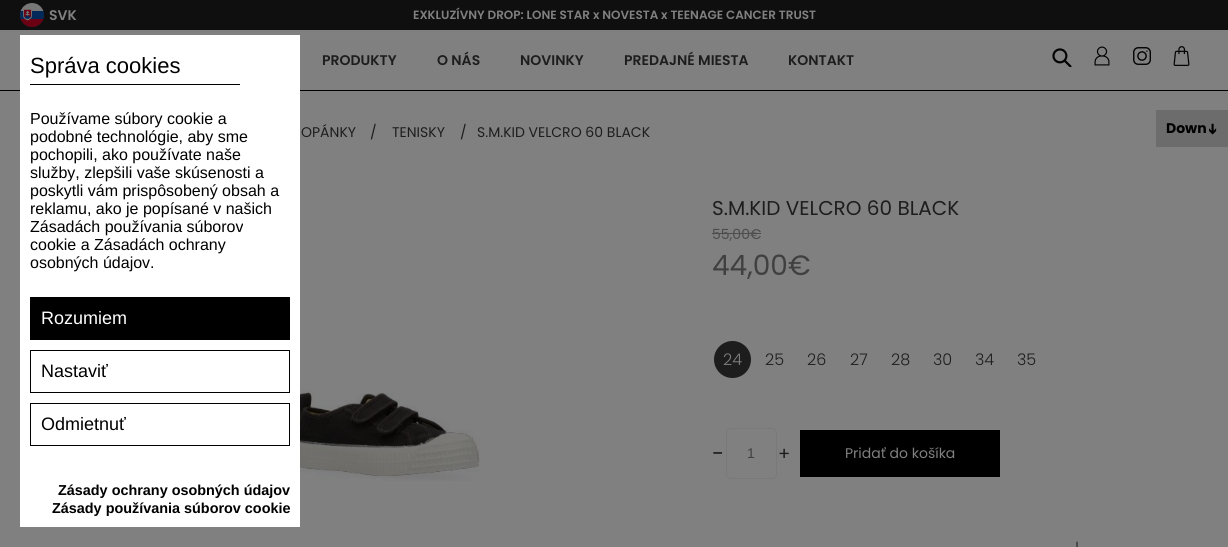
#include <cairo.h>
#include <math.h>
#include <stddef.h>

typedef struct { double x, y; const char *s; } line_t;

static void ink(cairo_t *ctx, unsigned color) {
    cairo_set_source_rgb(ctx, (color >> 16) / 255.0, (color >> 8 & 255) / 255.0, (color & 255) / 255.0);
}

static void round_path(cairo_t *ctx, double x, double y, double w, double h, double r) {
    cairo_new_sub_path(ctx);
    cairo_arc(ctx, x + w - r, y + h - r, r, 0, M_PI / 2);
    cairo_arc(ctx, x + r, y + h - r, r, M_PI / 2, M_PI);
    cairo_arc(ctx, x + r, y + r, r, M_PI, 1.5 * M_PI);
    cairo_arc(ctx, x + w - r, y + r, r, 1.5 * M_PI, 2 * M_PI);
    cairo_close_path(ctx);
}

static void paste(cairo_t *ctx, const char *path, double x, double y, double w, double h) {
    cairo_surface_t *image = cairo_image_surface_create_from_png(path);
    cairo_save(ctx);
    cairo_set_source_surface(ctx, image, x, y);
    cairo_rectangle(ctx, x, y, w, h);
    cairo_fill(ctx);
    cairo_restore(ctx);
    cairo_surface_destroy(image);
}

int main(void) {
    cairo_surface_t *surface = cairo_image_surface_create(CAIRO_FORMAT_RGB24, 1228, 547);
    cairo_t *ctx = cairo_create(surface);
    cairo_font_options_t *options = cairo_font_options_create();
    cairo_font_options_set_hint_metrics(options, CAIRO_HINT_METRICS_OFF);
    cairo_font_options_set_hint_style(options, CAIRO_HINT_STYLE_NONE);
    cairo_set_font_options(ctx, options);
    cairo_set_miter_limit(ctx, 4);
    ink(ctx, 0x808080);
    cairo_paint(ctx);
    ink(ctx, 0x000000);
    cairo_rectangle(ctx, 0, 90, 1228, 1);
    cairo_fill(ctx);
    ink(ctx, 0x0F0F0F);
    cairo_rectangle(ctx, 0, 0, 1228, 30);
    cairo_fill(ctx);
    paste(ctx, "media/1.png", 20, 3, 24, 24);
    cairo_select_font_face(ctx, "Poppins SemiBold", CAIRO_FONT_SLANT_NORMAL, CAIRO_FONT_WEIGHT_NORMAL);
    cairo_set_font_size(ctx, 14);
    ink(ctx, 0x808080);
    cairo_move_to(ctx, 49, 20);
    cairo_show_text(ctx, "SVK");
    cairo_set_font_size(ctx, 12);
    cairo_move_to(ctx, 413, 19);
    cairo_show_text(ctx, "EXKLUZÍVNY DROP: LONE STAR x NOVESTA x TEENAGE CANCER TRUST");
    cairo_set_font_size(ctx, 14);
    ink(ctx, 0x1D1D1D);
    {
        static const line_t items[] = {
            {322, 65, "PRODUKTY"},
            {437, 65, "O NÁS"},
            {520, 65, "NOVINKY"},
            {624, 65, "PREDAJNÉ MIESTA"},
            {788, 65, "KONTAKT"},
        };
        for (size_t i = 0; i < sizeof items / sizeof *items; i++) {
            cairo_move_to(ctx, items[i].x, items[i].y);
            cairo_show_text(ctx, items[i].s);
        }
    }
    paste(ctx, "media/2.png", 1052, 48, 20, 19);
    paste(ctx, "media/3.png", 1094, 46, 16, 20);
    paste(ctx, "media/4.png", 1133, 47, 18, 18);
    paste(ctx, "media/5.png", 1173, 46, 17, 20);
    cairo_select_font_face(ctx, "Poppins", CAIRO_FONT_SLANT_NORMAL, CAIRO_FONT_WEIGHT_NORMAL);
    {
        static const line_t items[] = {
            {301, 137, "OPÁNKY"},
            {370, 137, "/"},
            {392, 137, "TENISKY"},
            {460, 137, "/"},
            {477, 137, "S.M.KID VELCRO 60 BLACK"},
        };
        for (size_t i = 0; i < sizeof items / sizeof *items; i++) {
            cairo_move_to(ctx, items[i].x, items[i].y);
            cairo_show_text(ctx, items[i].s);
        }
    }
    paste(ctx, "media/6.png", 300, 389, 180, 92);
    cairo_set_font_size(ctx, 20);
    cairo_move_to(ctx, 712, 215);
    cairo_show_text(ctx, "S.M.KID VELCRO 60 BLACK");
    cairo_set_font_size(ctx, 14);
    ink(ctx, 0x4D4D4D);
    cairo_move_to(ctx, 712, 239);
    cairo_show_text(ctx, "55,00€");
    cairo_rectangle(ctx, 712, 233, 49, 1);
    cairo_fill(ctx);
    cairo_set_font_size(ctx, 28);
    ink(ctx, 0x404040);
    cairo_move_to(ctx, 712, 275);
    cairo_show_text(ctx, "44,00€");
    ink(ctx, 0x1D1D1D);
    cairo_new_path(ctx);
    cairo_arc(ctx, 732.5, 359.5, 18.5, 0, 2 * M_PI);
    cairo_fill(ctx);
    cairo_select_font_face(ctx, "Poppins Light", CAIRO_FONT_SLANT_NORMAL, CAIRO_FONT_WEIGHT_NORMAL);
    cairo_set_font_size(ctx, 16);
    ink(ctx, 0x808080);
    cairo_move_to(ctx, 723, 365);
    cairo_show_text(ctx, "24");
    ink(ctx, 0x1D1D1D);
    {
        static const line_t items[] = {
            {765, 365, "25"},
            {807, 365, "26"},
            {850, 365, "27"},
            {891, 365, "28"},
            {933, 365, "30"},
            {975, 365, "34"},
            {1017, 365, "35"},
        };
        for (size_t i = 0; i < sizeof items / sizeof *items; i++) {
            cairo_move_to(ctx, items[i].x, items[i].y);
            cairo_show_text(ctx, items[i].s);
        }
    }
    cairo_select_font_face(ctx, "Poppins", CAIRO_FONT_SLANT_NORMAL, CAIRO_FONT_WEIGHT_NORMAL);
    cairo_set_font_size(ctx, 22);
    cairo_move_to(ctx, 712, 461);
    cairo_show_text(ctx, "-");
    round_path(ctx, 726.5, 428.5, 50, 50, 4.5);
    ink(ctx, 0x797979);
    cairo_set_line_width(ctx, 1);
    cairo_stroke(ctx);
    cairo_select_font_face(ctx, "Liberation Sans", CAIRO_FONT_SLANT_NORMAL, CAIRO_FONT_WEIGHT_NORMAL);
    cairo_set_font_size(ctx, 14);
    ink(ctx, 0x404040);
    cairo_move_to(ctx, 747, 458);
    cairo_show_text(ctx, "1");
    cairo_select_font_face(ctx, "Poppins", CAIRO_FONT_SLANT_NORMAL, CAIRO_FONT_WEIGHT_NORMAL);
    cairo_set_font_size(ctx, 18);
    ink(ctx, 0x1D1D1D);
    cairo_move_to(ctx, 778, 460);
    cairo_show_text(ctx, "+");
    ink(ctx, 0x000000);
    cairo_rectangle(ctx, 800, 430, 200, 47);
    cairo_fill(ctx);
    cairo_set_font_size(ctx, 14);
    ink(ctx, 0x808080);
    cairo_move_to(ctx, 845, 458);
    cairo_show_text(ctx, "Pridať do košíka");
    paste(ctx, "media/7.png", 1076, 541, 2, 6);
    ink(ctx, 0xFFFFFF);
    cairo_rectangle(ctx, 20, 35, 280, 492);
    cairo_fill(ctx);
    ink(ctx, 0x000000);
    cairo_rectangle(ctx, 30, 84, 210, 1);
    cairo_fill(ctx);
    cairo_select_font_face(ctx, "Liberation Sans", CAIRO_FONT_SLANT_NORMAL, CAIRO_FONT_WEIGHT_NORMAL);
    cairo_set_font_size(ctx, 22);
    cairo_move_to(ctx, 30, 73);
    cairo_show_text(ctx, "Správa cookies");
    cairo_set_font_size(ctx, 16);
    {
        static const line_t items[] = {
            {30, 124, "Používame súbory cookie a"},
            {30, 142, "podobné technológie, aby sme"},
            {30, 160, "pochopili, ako používate naše"},
            {30, 178, "služby, zlepšili vaše skúsenosti a"},
            {30, 196, "poskytli vám prispôsobený obsah a"},
            {30, 214, "reklamu, ako je popísané v našich"},
            {30, 232, "Zásadách používania súborov"},
            {30, 250, "cookie a Zásadách ochrany"},
            {30, 268, "osobných údajov."},
        };
        for (size_t i = 0; i < sizeof items / sizeof *items; i++) {
            cairo_move_to(ctx, items[i].x, items[i].y);
            cairo_show_text(ctx, items[i].s);
        }
    }
    cairo_rectangle(ctx, 30, 297, 260, 43);
    cairo_fill(ctx);
    cairo_set_font_size(ctx, 18);
    ink(ctx, 0xFFFFFF);
    cairo_move_to(ctx, 41, 324);
    cairo_show_text(ctx, "Rozumiem");
    cairo_rectangle(ctx, 30.5, 350.5, 259, 42);
    ink(ctx, 0x000000);
    cairo_stroke(ctx);
    cairo_move_to(ctx, 41, 377);
    cairo_show_text(ctx, "Nastaviť");
    cairo_rectangle(ctx, 30.5, 403.5, 259, 42);
    cairo_stroke(ctx);
    cairo_move_to(ctx, 41, 430);
    cairo_show_text(ctx, "Odmietnuť");
    cairo_select_font_face(ctx, "Liberation Sans", CAIRO_FONT_SLANT_NORMAL, CAIRO_FONT_WEIGHT_BOLD);
    cairo_set_font_size(ctx, 14.4);
    cairo_move_to(ctx, 58, 495);
    cairo_show_text(ctx, "Zásady ochrany osobných údajov");
    cairo_move_to(ctx, 52, 513);
    cairo_show_text(ctx, "Zásady používania súborov cookie");
    ink(ctx, 0x6C6C6C);
    cairo_rectangle(ctx, 1156, 110, 72, 37);
    cairo_fill(ctx);
    cairo_select_font_face(ctx, "Poppins", CAIRO_FONT_SLANT_NORMAL, CAIRO_FONT_WEIGHT_BOLD);
    cairo_set_font_size(ctx, 14);
    ink(ctx, 0x000000);
    cairo_move_to(ctx, 1166, 133);
    cairo_show_text(ctx, "Down");
    cairo_select_font_face(ctx, "DejaVu Sans", CAIRO_FONT_SLANT_NORMAL, CAIRO_FONT_WEIGHT_BOLD);
    cairo_save(ctx);
    cairo_translate(ctx, 1208, 123);
    cairo_rotate(ctx, 90 * M_PI / 180);
    cairo_move_to(ctx, 0, 0);
    cairo_show_text(ctx, "➔");
    cairo_restore(ctx);
    cairo_surface_write_to_png(surface, "image.png");
    cairo_font_options_destroy(options);
    cairo_destroy(ctx);
    cairo_surface_destroy(surface);
    return 0;
}
